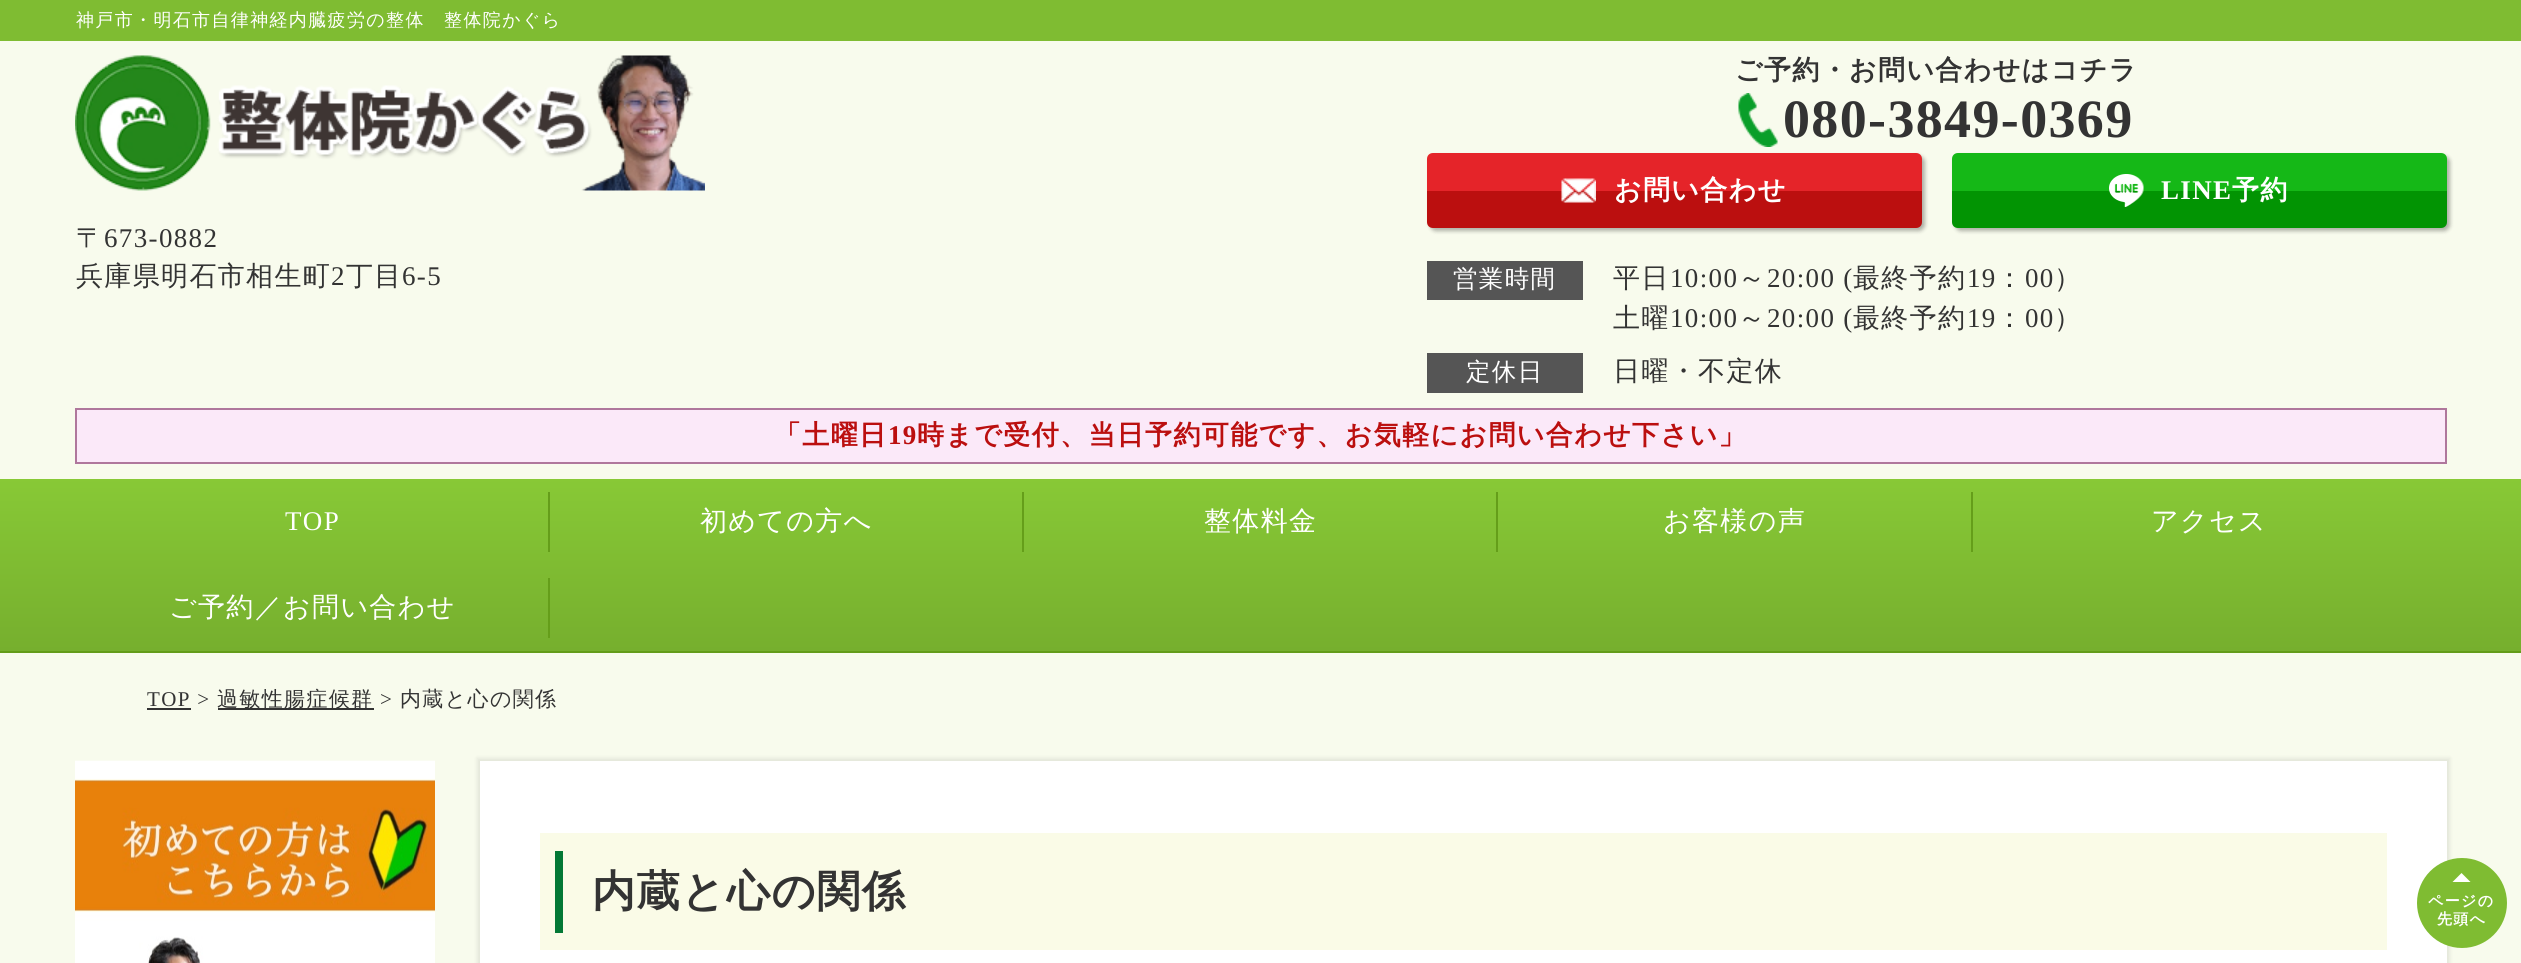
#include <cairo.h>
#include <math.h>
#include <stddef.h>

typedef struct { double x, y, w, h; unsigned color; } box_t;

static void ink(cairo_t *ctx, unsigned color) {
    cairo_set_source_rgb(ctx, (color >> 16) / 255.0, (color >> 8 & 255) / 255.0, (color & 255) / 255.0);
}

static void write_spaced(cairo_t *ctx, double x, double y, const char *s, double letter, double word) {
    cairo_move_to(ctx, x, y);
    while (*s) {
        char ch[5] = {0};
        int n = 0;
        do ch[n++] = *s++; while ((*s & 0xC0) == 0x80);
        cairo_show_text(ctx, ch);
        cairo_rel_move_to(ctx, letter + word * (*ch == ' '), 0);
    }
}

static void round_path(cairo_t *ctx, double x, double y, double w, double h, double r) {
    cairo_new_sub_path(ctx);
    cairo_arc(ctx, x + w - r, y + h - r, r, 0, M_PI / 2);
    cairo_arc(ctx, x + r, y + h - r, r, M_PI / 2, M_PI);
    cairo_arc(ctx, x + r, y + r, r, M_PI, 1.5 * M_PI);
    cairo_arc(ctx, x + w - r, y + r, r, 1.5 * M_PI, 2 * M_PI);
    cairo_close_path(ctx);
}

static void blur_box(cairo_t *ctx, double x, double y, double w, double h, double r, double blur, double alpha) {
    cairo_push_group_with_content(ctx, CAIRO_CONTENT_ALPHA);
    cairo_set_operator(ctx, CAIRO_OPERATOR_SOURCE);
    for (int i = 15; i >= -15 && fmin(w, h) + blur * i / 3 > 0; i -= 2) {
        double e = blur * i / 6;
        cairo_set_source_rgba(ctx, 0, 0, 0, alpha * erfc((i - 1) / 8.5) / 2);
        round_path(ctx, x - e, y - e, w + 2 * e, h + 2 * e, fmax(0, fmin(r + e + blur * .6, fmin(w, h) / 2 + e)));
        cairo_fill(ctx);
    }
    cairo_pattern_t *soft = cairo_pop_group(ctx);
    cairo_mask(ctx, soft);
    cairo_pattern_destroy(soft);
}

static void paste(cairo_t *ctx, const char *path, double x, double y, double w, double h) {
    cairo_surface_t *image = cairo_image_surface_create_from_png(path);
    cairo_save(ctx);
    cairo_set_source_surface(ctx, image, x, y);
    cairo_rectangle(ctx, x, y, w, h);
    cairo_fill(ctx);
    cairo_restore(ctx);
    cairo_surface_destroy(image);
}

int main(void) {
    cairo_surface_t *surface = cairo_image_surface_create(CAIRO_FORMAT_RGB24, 2521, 963);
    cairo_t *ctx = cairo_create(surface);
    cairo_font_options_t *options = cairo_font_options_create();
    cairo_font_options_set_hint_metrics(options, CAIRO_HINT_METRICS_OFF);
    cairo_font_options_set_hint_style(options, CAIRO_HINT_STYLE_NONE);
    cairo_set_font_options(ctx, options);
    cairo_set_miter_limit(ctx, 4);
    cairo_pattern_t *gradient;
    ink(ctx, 0xF8FBED);
    cairo_paint(ctx);
    ink(ctx, 0x7FBC32);
    cairo_rectangle(ctx, 0, 0, 2521, 41);
    cairo_fill(ctx);
    cairo_select_font_face(ctx, "WenQuanYi Zen Hei Medium", CAIRO_FONT_SLANT_NORMAL, CAIRO_FONT_WEIGHT_NORMAL);
    cairo_set_font_size(ctx, 18);
    ink(ctx, 0xFFFFFF);
    write_spaced(ctx, 76, 26, "神戸市・明石市自律神経内臓疲労の整体　整体院かぐら", 1.35, 0);
    paste(ctx, "media/1.png", 75, 55, 630, 136);
    cairo_set_font_size(ctx, 27);
    ink(ctx, 0x333333);
    write_spaced(ctx, 76, 247, "〒", 1.35, 0);
    cairo_select_font_face(ctx, "Liberation Serif", CAIRO_FONT_SLANT_NORMAL, CAIRO_FONT_WEIGHT_NORMAL);
    write_spaced(ctx, 104, 247, "673-0882", 1.35, 0);
    cairo_select_font_face(ctx, "WenQuanYi Zen Hei Medium", CAIRO_FONT_SLANT_NORMAL, CAIRO_FONT_WEIGHT_NORMAL);
    write_spaced(ctx, 76, 285, "兵庫県明石市相生町", 1.35, 0);
    cairo_select_font_face(ctx, "Liberation Serif", CAIRO_FONT_SLANT_NORMAL, CAIRO_FONT_WEIGHT_NORMAL);
    write_spaced(ctx, 331, 285, "2", 1.35, 0);
    cairo_select_font_face(ctx, "WenQuanYi Zen Hei Medium", CAIRO_FONT_SLANT_NORMAL, CAIRO_FONT_WEIGHT_NORMAL);
    write_spaced(ctx, 346, 285, "丁目", 1.35, 0);
    cairo_select_font_face(ctx, "Liberation Serif", CAIRO_FONT_SLANT_NORMAL, CAIRO_FONT_WEIGHT_NORMAL);
    write_spaced(ctx, 402, 285, "6-5", 1.35, 0);
    cairo_select_font_face(ctx, "WenQuanYi Zen Hei", CAIRO_FONT_SLANT_NORMAL, CAIRO_FONT_WEIGHT_BOLD);
    write_spaced(ctx, 1735, 79, "ご予約・お問い合わせはコチラ", 1.35, 0);
    paste(ctx, "media/2.png", 1738, 93, 40, 54);
    cairo_select_font_face(ctx, "Liberation Serif", CAIRO_FONT_SLANT_NORMAL, CAIRO_FONT_WEIGHT_BOLD);
    cairo_set_font_size(ctx, 54);
    write_spaced(ctx, 1783, 137, "080-3849-0369", 1.35, 0);
    ink(ctx, 0x000000);
    blur_box(ctx, 1430, 156, 495, 75, 6, 2, 0.3);
    ink(ctx, 0xE52429);
    cairo_new_path(ctx);
    cairo_move_to(ctx, 1433, 153);
    cairo_line_to(ctx, 1916, 153);
    cairo_curve_to(ctx, 1919.5, 153, 1922, 155.5, 1922, 159);
    cairo_line_to(ctx, 1922, 191);
    cairo_line_to(ctx, 1427, 191);
    cairo_line_to(ctx, 1427, 159);
    cairo_curve_to(ctx, 1427, 155.5, 1429.5, 153, 1433, 153);
    cairo_close_path(ctx);
    cairo_fill(ctx);
    ink(ctx, 0xBB0F0F);
    cairo_new_path(ctx);
    cairo_move_to(ctx, 1427, 191);
    cairo_line_to(ctx, 1922, 191);
    cairo_line_to(ctx, 1922, 222);
    cairo_curve_to(ctx, 1922, 225.5, 1919.5, 228, 1916, 228);
    cairo_line_to(ctx, 1433, 228);
    cairo_curve_to(ctx, 1429.5, 228, 1427, 225.5, 1427, 222);
    cairo_close_path(ctx);
    cairo_fill(ctx);
    paste(ctx, "media/3.png", 1561, 178, 35, 25);
    cairo_select_font_face(ctx, "WenQuanYi Zen Hei", CAIRO_FONT_SLANT_NORMAL, CAIRO_FONT_WEIGHT_BOLD);
    cairo_set_font_size(ctx, 27);
    ink(ctx, 0xFFFFFF);
    write_spaced(ctx, 1614, 199, "お問い合わせ", 1.35, 0);
    ink(ctx, 0x000000);
    blur_box(ctx, 1955, 156, 495, 75, 6, 2, 0.3);
    ink(ctx, 0x15B817);
    cairo_new_path(ctx);
    cairo_move_to(ctx, 1958, 153);
    cairo_line_to(ctx, 2441, 153);
    cairo_curve_to(ctx, 2444.5, 153, 2447, 155.5, 2447, 159);
    cairo_line_to(ctx, 2447, 191);
    cairo_line_to(ctx, 1952, 191);
    cairo_line_to(ctx, 1952, 159);
    cairo_curve_to(ctx, 1952, 155.5, 1954.5, 153, 1958, 153);
    cairo_close_path(ctx);
    cairo_fill(ctx);
    ink(ctx, 0x029403);
    cairo_new_path(ctx);
    cairo_move_to(ctx, 1952, 191);
    cairo_line_to(ctx, 2447, 191);
    cairo_line_to(ctx, 2447, 222);
    cairo_curve_to(ctx, 2447, 225.5, 2444.5, 228, 2441, 228);
    cairo_line_to(ctx, 1958, 228);
    cairo_curve_to(ctx, 1954.5, 228, 1952, 225.5, 1952, 222);
    cairo_close_path(ctx);
    cairo_fill(ctx);
    paste(ctx, "media/4.png", 2109, 174, 35, 33);
    cairo_select_font_face(ctx, "Liberation Serif", CAIRO_FONT_SLANT_NORMAL, CAIRO_FONT_WEIGHT_BOLD);
    ink(ctx, 0xFFFFFF);
    write_spaced(ctx, 2161, 199, "LINE", 1.35, 0);
    cairo_select_font_face(ctx, "WenQuanYi Zen Hei", CAIRO_FONT_SLANT_NORMAL, CAIRO_FONT_WEIGHT_BOLD);
    write_spaced(ctx, 2232, 199, "予約", 1.35, 0);
    ink(ctx, 0x555555);
    cairo_rectangle(ctx, 1427, 261, 156, 39);
    cairo_fill(ctx);
    cairo_select_font_face(ctx, "WenQuanYi Zen Hei Medium", CAIRO_FONT_SLANT_NORMAL, CAIRO_FONT_WEIGHT_NORMAL);
    cairo_set_font_size(ctx, 24.5);
    ink(ctx, 0xFFFFFF);
    write_spaced(ctx, 1453, 287, "営業時間", 1.35, 0);
    cairo_set_font_size(ctx, 27);
    ink(ctx, 0x333333);
    write_spaced(ctx, 1613, 287, "平日", 1.35, 0);
    cairo_select_font_face(ctx, "Liberation Serif", CAIRO_FONT_SLANT_NORMAL, CAIRO_FONT_WEIGHT_NORMAL);
    write_spaced(ctx, 1670, 287, "10:00", 1.35, 0);
    cairo_select_font_face(ctx, "WenQuanYi Zen Hei Medium", CAIRO_FONT_SLANT_NORMAL, CAIRO_FONT_WEIGHT_NORMAL);
    write_spaced(ctx, 1738, 287, "～", 1.35, 0);
    cairo_select_font_face(ctx, "Liberation Serif", CAIRO_FONT_SLANT_NORMAL, CAIRO_FONT_WEIGHT_NORMAL);
    write_spaced(ctx, 1767, 287, "20:00 (", 1.35, 0);
    cairo_select_font_face(ctx, "WenQuanYi Zen Hei Medium", CAIRO_FONT_SLANT_NORMAL, CAIRO_FONT_WEIGHT_NORMAL);
    write_spaced(ctx, 1853, 287, "最終予約", 1.35, 0);
    cairo_select_font_face(ctx, "Liberation Serif", CAIRO_FONT_SLANT_NORMAL, CAIRO_FONT_WEIGHT_NORMAL);
    write_spaced(ctx, 1967, 287, "19", 1.35, 0);
    cairo_select_font_face(ctx, "WenQuanYi Zen Hei Medium", CAIRO_FONT_SLANT_NORMAL, CAIRO_FONT_WEIGHT_NORMAL);
    write_spaced(ctx, 1996, 287, "：", 1.35, 0);
    cairo_select_font_face(ctx, "Liberation Serif", CAIRO_FONT_SLANT_NORMAL, CAIRO_FONT_WEIGHT_NORMAL);
    write_spaced(ctx, 2025, 287, "00", 1.35, 0);
    cairo_select_font_face(ctx, "WenQuanYi Zen Hei Medium", CAIRO_FONT_SLANT_NORMAL, CAIRO_FONT_WEIGHT_NORMAL);
    write_spaced(ctx, 2054, 287, "）", 1.35, 0);
    write_spaced(ctx, 1613, 327, "土曜", 1.35, 0);
    cairo_select_font_face(ctx, "Liberation Serif", CAIRO_FONT_SLANT_NORMAL, CAIRO_FONT_WEIGHT_NORMAL);
    write_spaced(ctx, 1670, 327, "10:00", 1.35, 0);
    cairo_select_font_face(ctx, "WenQuanYi Zen Hei Medium", CAIRO_FONT_SLANT_NORMAL, CAIRO_FONT_WEIGHT_NORMAL);
    write_spaced(ctx, 1738, 327, "～", 1.35, 0);
    cairo_select_font_face(ctx, "Liberation Serif", CAIRO_FONT_SLANT_NORMAL, CAIRO_FONT_WEIGHT_NORMAL);
    write_spaced(ctx, 1767, 327, "20:00 (", 1.35, 0);
    cairo_select_font_face(ctx, "WenQuanYi Zen Hei Medium", CAIRO_FONT_SLANT_NORMAL, CAIRO_FONT_WEIGHT_NORMAL);
    write_spaced(ctx, 1853, 327, "最終予約", 1.35, 0);
    cairo_select_font_face(ctx, "Liberation Serif", CAIRO_FONT_SLANT_NORMAL, CAIRO_FONT_WEIGHT_NORMAL);
    write_spaced(ctx, 1967, 327, "19", 1.35, 0);
    cairo_select_font_face(ctx, "WenQuanYi Zen Hei Medium", CAIRO_FONT_SLANT_NORMAL, CAIRO_FONT_WEIGHT_NORMAL);
    write_spaced(ctx, 1996, 327, "：", 1.35, 0);
    cairo_select_font_face(ctx, "Liberation Serif", CAIRO_FONT_SLANT_NORMAL, CAIRO_FONT_WEIGHT_NORMAL);
    write_spaced(ctx, 2025, 327, "00", 1.35, 0);
    cairo_select_font_face(ctx, "WenQuanYi Zen Hei Medium", CAIRO_FONT_SLANT_NORMAL, CAIRO_FONT_WEIGHT_NORMAL);
    write_spaced(ctx, 2054, 327, "）", 1.35, 0);
    ink(ctx, 0x555555);
    cairo_rectangle(ctx, 1427, 353, 156, 40);
    cairo_fill(ctx);
    cairo_set_font_size(ctx, 24.5);
    ink(ctx, 0xFFFFFF);
    write_spaced(ctx, 1466, 380, "定休日", 1.35, 0);
    cairo_set_font_size(ctx, 27);
    ink(ctx, 0x333333);
    write_spaced(ctx, 1613, 380, "日曜・不定休", 1.35, 0);
    ink(ctx, 0xFBE9F9);
    cairo_rectangle(ctx, 76, 409, 2370, 54);
    cairo_fill_preserve(ctx);
    ink(ctx, 0xAF779C);
    cairo_stroke(ctx);
    cairo_select_font_face(ctx, "WenQuanYi Zen Hei", CAIRO_FONT_SLANT_NORMAL, CAIRO_FONT_WEIGHT_BOLD);
    ink(ctx, 0xBB0F0F);
    write_spaced(ctx, 774, 444, "「土曜日", 1.35, 0);
    cairo_select_font_face(ctx, "Liberation Serif", CAIRO_FONT_SLANT_NORMAL, CAIRO_FONT_WEIGHT_BOLD);
    write_spaced(ctx, 888, 444, "19", 1.35, 0);
    cairo_select_font_face(ctx, "WenQuanYi Zen Hei", CAIRO_FONT_SLANT_NORMAL, CAIRO_FONT_WEIGHT_BOLD);
    write_spaced(ctx, 917, 444, "時まで受付、当日予約可能です、お気軽にお問い合わせ下さい」", 1.35, 0);
    gradient = cairo_pattern_create_linear(1261, 478, 1261, 651);
    cairo_pattern_add_color_stop_rgba(gradient, 0, 0.533, 0.788, 0.212, 1);
    cairo_pattern_add_color_stop_rgba(gradient, 1, 0.463, 0.686, 0.18, 1);
    cairo_set_source(ctx, gradient);
    cairo_pattern_destroy(gradient);
    cairo_rectangle(ctx, 0, 479, 2521, 172);
    cairo_fill(ctx);
    ink(ctx, 0x639C19);
    cairo_rectangle(ctx, 0, 651, 2521, 2);
    cairo_fill(ctx);
    cairo_select_font_face(ctx, "Liberation Serif", CAIRO_FONT_SLANT_NORMAL, CAIRO_FONT_WEIGHT_NORMAL);
    ink(ctx, 0xFFFFFF);
    write_spaced(ctx, 285, 530, "TOP", 1.35, 0);
    ink(ctx, 0x659E1A);
    cairo_rectangle(ctx, 548, 492, 2, 60);
    cairo_fill(ctx);
    cairo_select_font_face(ctx, "WenQuanYi Zen Hei Medium", CAIRO_FONT_SLANT_NORMAL, CAIRO_FONT_WEIGHT_NORMAL);
    ink(ctx, 0xFFFFFF);
    write_spaced(ctx, 700, 530, "初めての方へ", 1.35, 0);
    ink(ctx, 0x659E1A);
    cairo_rectangle(ctx, 1022, 492, 2, 60);
    cairo_fill(ctx);
    ink(ctx, 0xFFFFFF);
    write_spaced(ctx, 1204, 530, "整体料金", 1.35, 0);
    ink(ctx, 0x659E1A);
    cairo_rectangle(ctx, 1496, 492, 2, 60);
    cairo_fill(ctx);
    ink(ctx, 0xFFFFFF);
    write_spaced(ctx, 1663, 530, "お客様の声", 1.35, 0);
    ink(ctx, 0x659E1A);
    cairo_rectangle(ctx, 1971, 492, 2, 60);
    cairo_fill(ctx);
    ink(ctx, 0xFFFFFF);
    write_spaced(ctx, 2151, 530, "アクセス", 1.35, 0);
    write_spaced(ctx, 169, 616, "ご予約／お問い合わせ", 1.35, 0);
    ink(ctx, 0x659E1A);
    cairo_rectangle(ctx, 548, 578, 2, 60);
    cairo_fill(ctx);
    cairo_select_font_face(ctx, "Liberation Serif", CAIRO_FONT_SLANT_NORMAL, CAIRO_FONT_WEIGHT_NORMAL);
    cairo_set_font_size(ctx, 21);
    ink(ctx, 0x333333);
    write_spaced(ctx, 147, 706, "TOP >", 1.35, 0);
    cairo_rectangle(ctx, 147, 708, 44, 2);
    cairo_fill(ctx);
    cairo_rectangle(ctx, 218, 708, 156, 2);
    cairo_fill(ctx);
    cairo_select_font_face(ctx, "WenQuanYi Zen Hei Medium", CAIRO_FONT_SLANT_NORMAL, CAIRO_FONT_WEIGHT_NORMAL);
    write_spaced(ctx, 217, 706, "過敏性腸症候群", 1.35, 0);
    cairo_select_font_face(ctx, "Liberation Serif", CAIRO_FONT_SLANT_NORMAL, CAIRO_FONT_WEIGHT_NORMAL);
    write_spaced(ctx, 380, 706, ">", 1.35, 0);
    cairo_select_font_face(ctx, "WenQuanYi Zen Hei Medium", CAIRO_FONT_SLANT_NORMAL, CAIRO_FONT_WEIGHT_NORMAL);
    write_spaced(ctx, 400, 706, "内蔵と心の関係", 1.35, 0);
    paste(ctx, "media/5.png", 75, 760, 360, 203);
    ink(ctx, 0x000000);
    blur_box(ctx, 477, 758, 1973, 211, 0, 2, 0.08);
    {
        static const box_t items[] = {
            {480, 761, 1967, 202, 0xFFFFFF},
            {540, 833, 1847, 117, 0xFAFBE7},
            {555, 851, 8, 82, 0x037835},
        };
        for (size_t i = 0; i < sizeof items / sizeof *items; i++) {
            ink(ctx, items[i].color);
            cairo_rectangle(ctx, items[i].x, items[i].y, items[i].w, items[i].h);
            cairo_fill(ctx);
        }
    }
    cairo_select_font_face(ctx, "WenQuanYi Zen Hei", CAIRO_FONT_SLANT_NORMAL, CAIRO_FONT_WEIGHT_BOLD);
    cairo_set_font_size(ctx, 43.25);
    ink(ctx, 0x333333);
    write_spaced(ctx, 592, 906, "内蔵と心の関係", 1.35, 0);
    ink(ctx, 0x7FBC32);
    cairo_new_path(ctx);
    cairo_arc(ctx, 2462, 903, 45, 0, 2 * M_PI);
    cairo_fill(ctx);
    ink(ctx, 0xFFFFFF);
    cairo_new_path(ctx);
    cairo_move_to(ctx, 2470.5, 882);
    cairo_line_to(ctx, 2452.5, 882);
    cairo_line_to(ctx, 2461.5, 873);
    cairo_close_path(ctx);
    cairo_fill(ctx);
    cairo_set_font_size(ctx, 15);
    write_spaced(ctx, 2428, 906, "ページの", 1.35, 0);
    write_spaced(ctx, 2437, 924, "先頭へ", 1.35, 0);
    cairo_surface_write_to_png(surface, "image.png");
    cairo_font_options_destroy(options);
    cairo_destroy(ctx);
    cairo_surface_destroy(surface);
    return 0;
}
